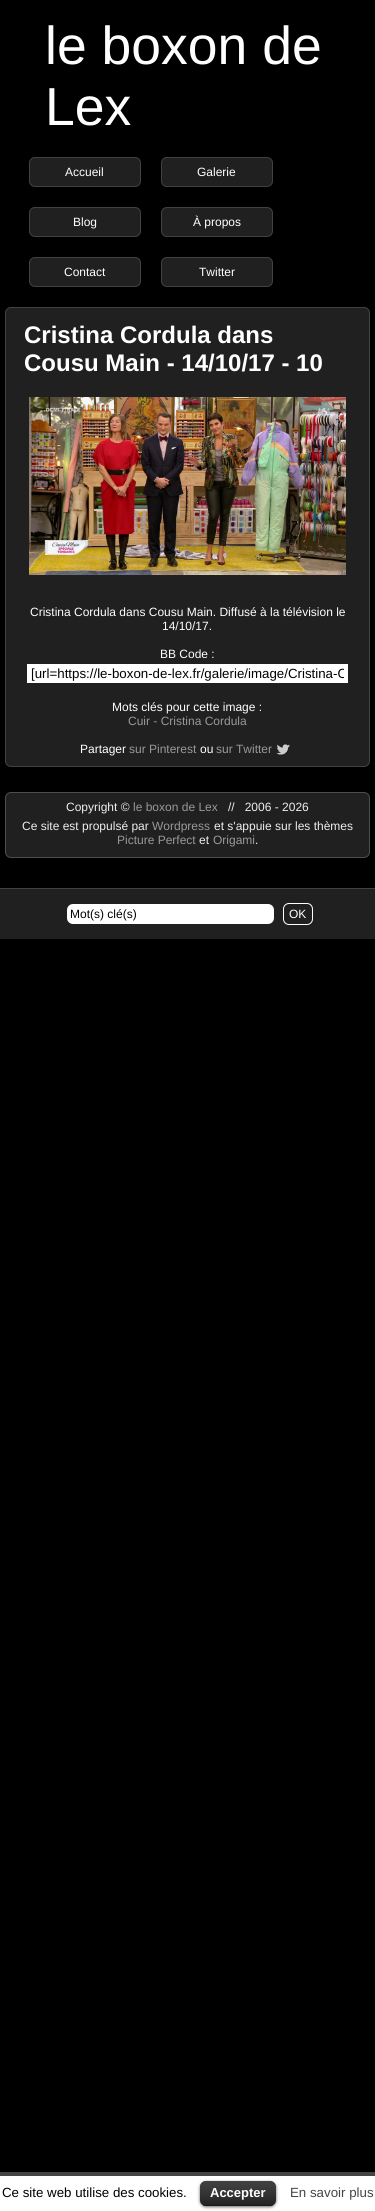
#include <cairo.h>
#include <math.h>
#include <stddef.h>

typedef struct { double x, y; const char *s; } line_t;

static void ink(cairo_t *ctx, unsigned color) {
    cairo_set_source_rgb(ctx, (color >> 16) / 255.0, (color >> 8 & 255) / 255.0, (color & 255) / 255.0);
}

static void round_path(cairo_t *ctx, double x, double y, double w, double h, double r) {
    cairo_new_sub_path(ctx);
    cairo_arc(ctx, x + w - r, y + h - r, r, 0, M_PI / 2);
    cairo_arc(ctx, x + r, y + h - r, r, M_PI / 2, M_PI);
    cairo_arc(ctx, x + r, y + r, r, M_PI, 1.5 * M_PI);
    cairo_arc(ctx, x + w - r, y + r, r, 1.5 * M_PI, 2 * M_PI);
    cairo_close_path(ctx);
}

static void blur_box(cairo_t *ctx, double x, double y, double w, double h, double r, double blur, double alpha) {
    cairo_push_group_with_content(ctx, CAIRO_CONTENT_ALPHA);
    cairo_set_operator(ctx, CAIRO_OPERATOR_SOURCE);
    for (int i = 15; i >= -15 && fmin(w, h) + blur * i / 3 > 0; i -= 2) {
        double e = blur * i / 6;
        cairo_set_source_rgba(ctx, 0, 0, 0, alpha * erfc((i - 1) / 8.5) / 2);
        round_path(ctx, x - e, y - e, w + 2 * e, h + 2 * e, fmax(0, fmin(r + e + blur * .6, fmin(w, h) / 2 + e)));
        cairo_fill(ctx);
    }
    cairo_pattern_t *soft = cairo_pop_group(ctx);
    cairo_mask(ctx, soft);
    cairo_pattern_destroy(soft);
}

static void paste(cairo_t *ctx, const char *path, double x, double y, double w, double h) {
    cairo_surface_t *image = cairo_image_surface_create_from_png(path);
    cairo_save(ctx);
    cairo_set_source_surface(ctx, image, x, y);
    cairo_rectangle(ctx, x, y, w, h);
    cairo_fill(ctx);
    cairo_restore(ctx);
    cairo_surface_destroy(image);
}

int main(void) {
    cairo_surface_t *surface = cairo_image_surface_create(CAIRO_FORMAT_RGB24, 375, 2211);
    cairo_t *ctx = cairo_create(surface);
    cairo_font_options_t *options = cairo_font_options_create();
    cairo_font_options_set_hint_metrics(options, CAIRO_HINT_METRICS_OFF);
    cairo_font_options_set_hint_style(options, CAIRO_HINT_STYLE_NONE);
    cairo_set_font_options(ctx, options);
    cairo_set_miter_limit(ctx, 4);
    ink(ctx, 0x000000);
    cairo_paint(ctx);
    cairo_select_font_face(ctx, "Liberation Sans", CAIRO_FONT_SLANT_NORMAL, CAIRO_FONT_WEIGHT_NORMAL);
    cairo_set_font_size(ctx, 53.5);
    ink(ctx, 0xFFFFFF);
    cairo_move_to(ctx, 45, 64);
    cairo_show_text(ctx, "le boxon de");
    cairo_move_to(ctx, 45, 125);
    cairo_show_text(ctx, "Lex");
    ink(ctx, 0x202020);
    round_path(ctx, 29.5, 157.5, 111, 29, 5.5);
    cairo_fill_preserve(ctx);
    ink(ctx, 0x424242);
    cairo_set_line_width(ctx, 1);
    cairo_stroke(ctx);
    cairo_set_font_size(ctx, 12);
    ink(ctx, 0xFFFFFF);
    cairo_move_to(ctx, 65, 176);
    cairo_show_text(ctx, "Accueil");
    ink(ctx, 0x202020);
    round_path(ctx, 161.5, 157.5, 111, 29, 5.5);
    cairo_fill_preserve(ctx);
    ink(ctx, 0x424242);
    cairo_stroke(ctx);
    ink(ctx, 0xFFFFFF);
    cairo_move_to(ctx, 197, 176);
    cairo_show_text(ctx, "Galerie");
    ink(ctx, 0x202020);
    round_path(ctx, 29.5, 207.5, 111, 29, 5.5);
    cairo_fill_preserve(ctx);
    ink(ctx, 0x424242);
    cairo_stroke(ctx);
    ink(ctx, 0xFFFFFF);
    cairo_move_to(ctx, 73, 226);
    cairo_show_text(ctx, "Blog");
    ink(ctx, 0x202020);
    round_path(ctx, 161.5, 207.5, 111, 29, 5.5);
    cairo_fill_preserve(ctx);
    ink(ctx, 0x424242);
    cairo_stroke(ctx);
    ink(ctx, 0xFFFFFF);
    cairo_move_to(ctx, 193, 226);
    cairo_show_text(ctx, "À propos");
    ink(ctx, 0x202020);
    round_path(ctx, 29.5, 257.5, 111, 29, 5.5);
    cairo_fill_preserve(ctx);
    ink(ctx, 0x424242);
    cairo_stroke(ctx);
    ink(ctx, 0xFFFFFF);
    cairo_move_to(ctx, 64, 276);
    cairo_show_text(ctx, "Contact");
    ink(ctx, 0x202020);
    round_path(ctx, 161.5, 257.5, 111, 29, 5.5);
    cairo_fill_preserve(ctx);
    ink(ctx, 0x424242);
    cairo_stroke(ctx);
    ink(ctx, 0xFFFFFF);
    cairo_move_to(ctx, 199, 276);
    cairo_show_text(ctx, "Twitter");
    ink(ctx, 0x202020);
    round_path(ctx, 5.5, 307.5, 364, 459, 5.5);
    cairo_fill_preserve(ctx);
    ink(ctx, 0x424242);
    cairo_stroke(ctx);
    cairo_select_font_face(ctx, "Liberation Sans", CAIRO_FONT_SLANT_NORMAL, CAIRO_FONT_WEIGHT_BOLD);
    cairo_set_font_size(ctx, 24);
    ink(ctx, 0xFFFFFF);
    cairo_move_to(ctx, 24, 343);
    cairo_show_text(ctx, "Cristina Cordula dans");
    cairo_move_to(ctx, 24, 371);
    cairo_show_text(ctx, "Cousu Main - 14/10/17 - 10");
    paste(ctx, "media/1.png", 29, 397, 317, 178);
    cairo_select_font_face(ctx, "Liberation Sans", CAIRO_FONT_SLANT_NORMAL, CAIRO_FONT_WEIGHT_NORMAL);
    cairo_set_font_size(ctx, 12);
    {
        static const line_t items[] = {
            {30, 616, "Cristina Cordula dans Cousu Main. Diffusé à la télévision le"},
            {162, 630, "14/10/17."},
            {160, 658, "BB Code :"},
        };
        for (size_t i = 0; i < sizeof items / sizeof *items; i++) {
            cairo_move_to(ctx, items[i].x, items[i].y);
            cairo_show_text(ctx, items[i].s);
        }
    }
    cairo_rectangle(ctx, 27, 664, 321, 19);
    cairo_fill(ctx);
    cairo_save(ctx);
    cairo_rectangle(ctx, 31, 666, 313, 15);
    cairo_clip(ctx);
    cairo_set_font_size(ctx, 13.3);
    ink(ctx, 0x000000);
    cairo_move_to(ctx, 31, 678);
    cairo_show_text(ctx, "[url=https://le-boxon-de-lex.fr/galerie/image/Cristina-C");
    cairo_restore(ctx);
    cairo_move_to(ctx, 112, 711);
    cairo_show_text(ctx, "Mots clés pour cette image :");
    ink(ctx, 0x999999);
    cairo_move_to(ctx, 128, 725);
    cairo_show_text(ctx, "Cuir - Cristina Cordula");
    ink(ctx, 0xFFFFFF);
    cairo_move_to(ctx, 80, 753);
    cairo_show_text(ctx, "Partager");
    ink(ctx, 0x999999);
    cairo_move_to(ctx, 129, 753);
    cairo_show_text(ctx, "sur Pinterest");
    ink(ctx, 0xFFFFFF);
    cairo_move_to(ctx, 200, 753);
    cairo_show_text(ctx, "ou");
    ink(ctx, 0x999999);
    cairo_move_to(ctx, 216, 753);
    cairo_show_text(ctx, "sur Twitter");
    paste(ctx, "media/2.png", 276, 744, 14, 11);
    ink(ctx, 0x202020);
    round_path(ctx, 5.5, 792.5, 364, 65, 5.5);
    cairo_fill_preserve(ctx);
    ink(ctx, 0x4D4D4D);
    cairo_stroke(ctx);
    ink(ctx, 0xEEEEEE);
    cairo_move_to(ctx, 66, 811);
    cairo_show_text(ctx, "Copyright ©");
    ink(ctx, 0x999999);
    cairo_move_to(ctx, 133, 811);
    cairo_show_text(ctx, "le boxon de Lex");
    ink(ctx, 0xEEEEEE);
    cairo_move_to(ctx, 228, 811);
    cairo_show_text(ctx, "//   2006 - 2026");
    cairo_move_to(ctx, 22, 830);
    cairo_show_text(ctx, "Ce site est propulsé par");
    ink(ctx, 0x999999);
    cairo_move_to(ctx, 152, 830);
    cairo_show_text(ctx, "Wordpress");
    ink(ctx, 0xEEEEEE);
    cairo_move_to(ctx, 214, 830);
    cairo_show_text(ctx, "et s'appuie sur les thèmes");
    ink(ctx, 0x999999);
    cairo_move_to(ctx, 117, 844);
    cairo_show_text(ctx, "Picture Perfect");
    ink(ctx, 0xEEEEEE);
    cairo_move_to(ctx, 199, 844);
    cairo_show_text(ctx, "et");
    ink(ctx, 0x999999);
    cairo_move_to(ctx, 213, 844);
    cairo_show_text(ctx, "Origami");
    ink(ctx, 0xEEEEEE);
    cairo_move_to(ctx, 255, 844);
    cairo_show_text(ctx, ".");
    ink(ctx, 0x202020);
    cairo_rectangle(ctx, 0, 889, 375, 50);
    cairo_fill(ctx);
    ink(ctx, 0x424242);
    cairo_rectangle(ctx, 0, 888, 375, 1);
    cairo_fill(ctx);
    ink(ctx, 0xFFFFFF);
    round_path(ctx, 67, 904, 207, 20, 6);
    cairo_fill(ctx);
    ink(ctx, 0x000000);
    cairo_move_to(ctx, 70, 918);
    cairo_show_text(ctx, "Mot(s) clé(s)");
    round_path(ctx, 283.5, 903.5, 29, 21, 5.5);
    ink(ctx, 0xFFFFFF);
    cairo_stroke(ctx);
    cairo_move_to(ctx, 289, 918);
    cairo_show_text(ctx, "OK");
    cairo_rectangle(ctx, 0, 2176, 375, 35);
    cairo_fill(ctx);
    ink(ctx, 0x444444);
    cairo_rectangle(ctx, 0, 2172, 375, 4);
    cairo_fill(ctx);
    cairo_set_font_size(ctx, 13.3);
    ink(ctx, 0x000000);
    cairo_move_to(ctx, 2, 2197);
    cairo_show_text(ctx, "Ce site web utilise des cookies.");
    ink(ctx, 0x000000);
    blur_box(ctx, 200, 2182, 76, 25, 6, 1.5, 0.6);
    ink(ctx, 0x000000);
    round_path(ctx, 200, 2181, 76, 25, 6);
    cairo_fill(ctx);
    paste(ctx, "media/3.png", 200, 2181, 76, 25);
    cairo_set_source_rgba(ctx, 0, 0, 0, 0.25);
    cairo_rectangle(ctx, 203, 2205, 70, 1);
    cairo_fill(ctx);
    cairo_select_font_face(ctx, "Liberation Sans", CAIRO_FONT_SLANT_NORMAL, CAIRO_FONT_WEIGHT_BOLD);
    cairo_set_font_size(ctx, 13);
    ink(ctx, 0xFFFFFF);
    cairo_move_to(ctx, 210, 2197);
    cairo_show_text(ctx, "Accepter");
    cairo_select_font_face(ctx, "Liberation Sans", CAIRO_FONT_SLANT_NORMAL, CAIRO_FONT_WEIGHT_NORMAL);
    cairo_set_font_size(ctx, 13.3);
    ink(ctx, 0x444444);
    cairo_move_to(ctx, 290, 2197);
    cairo_show_text(ctx, "En savoir plus");
    cairo_surface_write_to_png(surface, "image.png");
    cairo_font_options_destroy(options);
    cairo_destroy(ctx);
    cairo_surface_destroy(surface);
    return 0;
}
